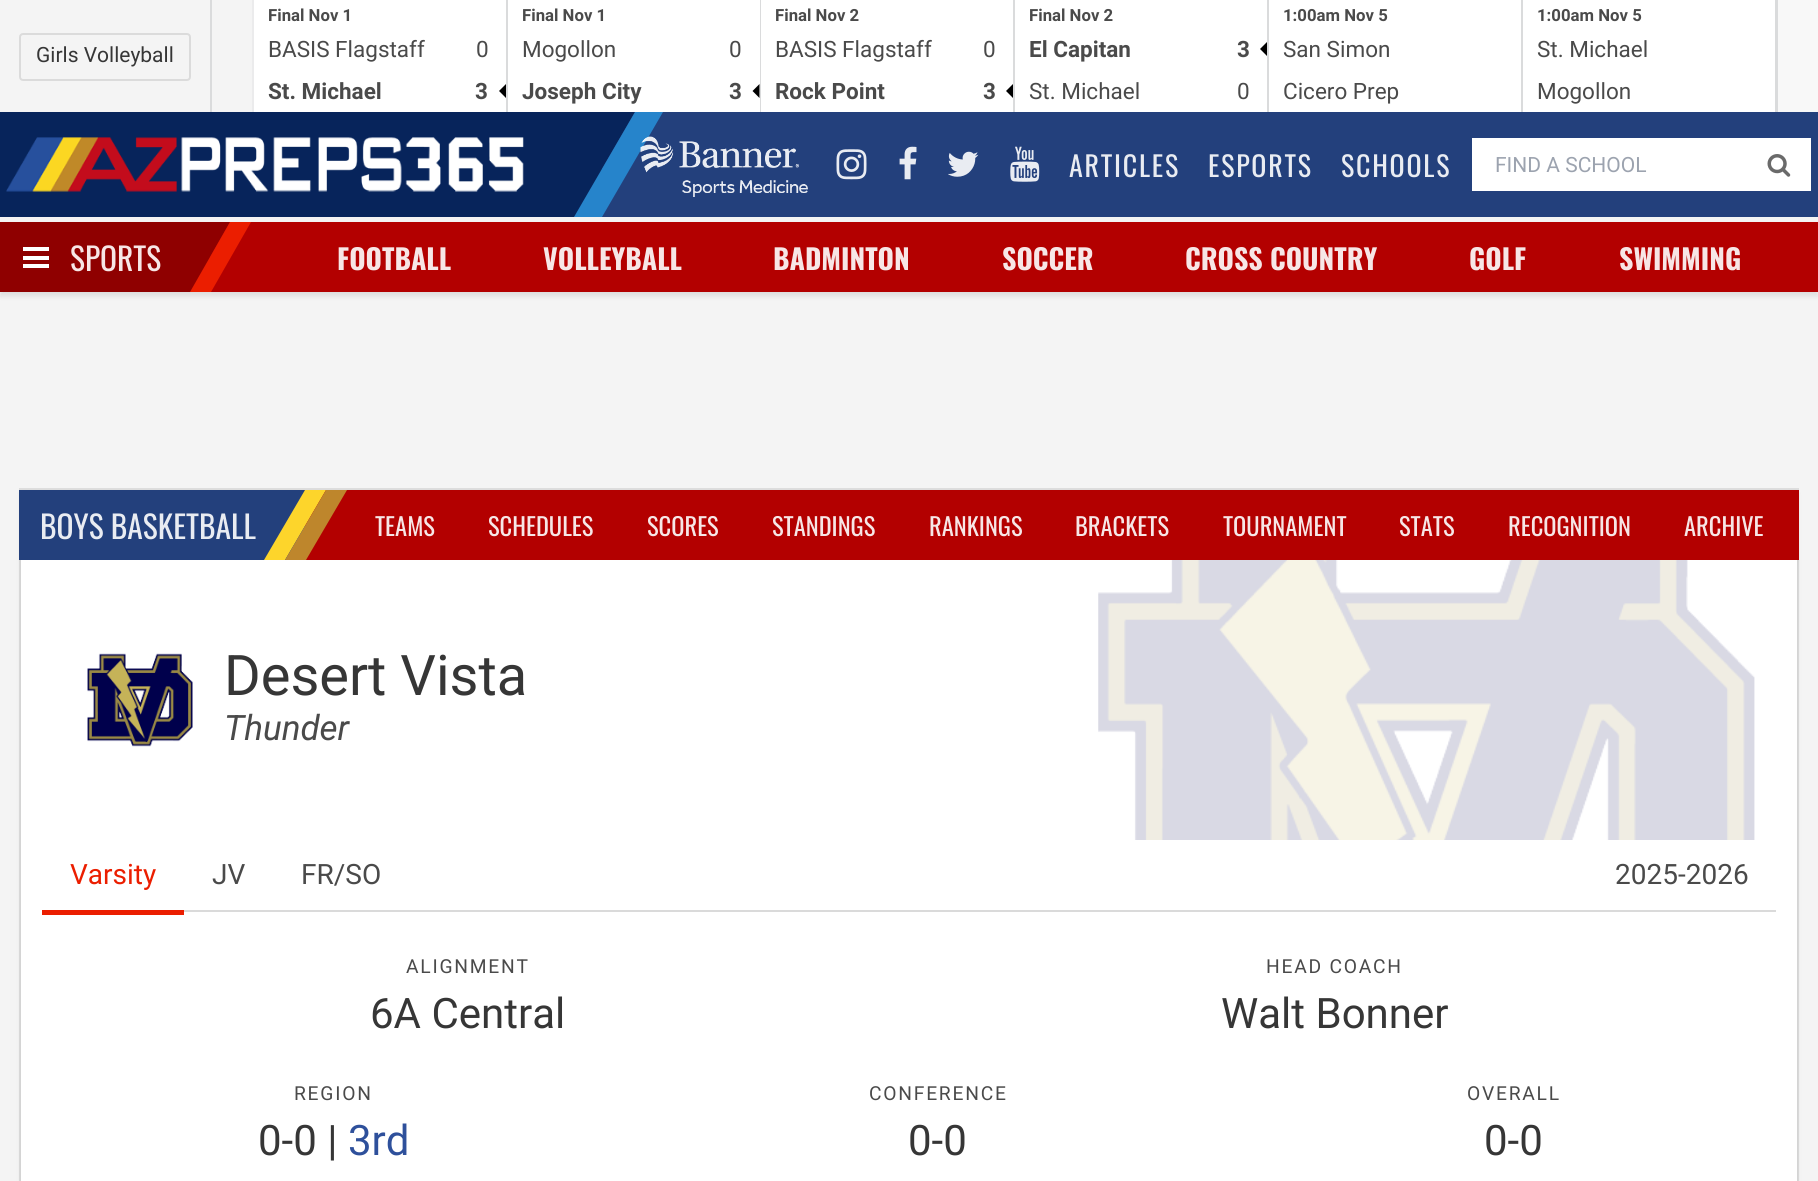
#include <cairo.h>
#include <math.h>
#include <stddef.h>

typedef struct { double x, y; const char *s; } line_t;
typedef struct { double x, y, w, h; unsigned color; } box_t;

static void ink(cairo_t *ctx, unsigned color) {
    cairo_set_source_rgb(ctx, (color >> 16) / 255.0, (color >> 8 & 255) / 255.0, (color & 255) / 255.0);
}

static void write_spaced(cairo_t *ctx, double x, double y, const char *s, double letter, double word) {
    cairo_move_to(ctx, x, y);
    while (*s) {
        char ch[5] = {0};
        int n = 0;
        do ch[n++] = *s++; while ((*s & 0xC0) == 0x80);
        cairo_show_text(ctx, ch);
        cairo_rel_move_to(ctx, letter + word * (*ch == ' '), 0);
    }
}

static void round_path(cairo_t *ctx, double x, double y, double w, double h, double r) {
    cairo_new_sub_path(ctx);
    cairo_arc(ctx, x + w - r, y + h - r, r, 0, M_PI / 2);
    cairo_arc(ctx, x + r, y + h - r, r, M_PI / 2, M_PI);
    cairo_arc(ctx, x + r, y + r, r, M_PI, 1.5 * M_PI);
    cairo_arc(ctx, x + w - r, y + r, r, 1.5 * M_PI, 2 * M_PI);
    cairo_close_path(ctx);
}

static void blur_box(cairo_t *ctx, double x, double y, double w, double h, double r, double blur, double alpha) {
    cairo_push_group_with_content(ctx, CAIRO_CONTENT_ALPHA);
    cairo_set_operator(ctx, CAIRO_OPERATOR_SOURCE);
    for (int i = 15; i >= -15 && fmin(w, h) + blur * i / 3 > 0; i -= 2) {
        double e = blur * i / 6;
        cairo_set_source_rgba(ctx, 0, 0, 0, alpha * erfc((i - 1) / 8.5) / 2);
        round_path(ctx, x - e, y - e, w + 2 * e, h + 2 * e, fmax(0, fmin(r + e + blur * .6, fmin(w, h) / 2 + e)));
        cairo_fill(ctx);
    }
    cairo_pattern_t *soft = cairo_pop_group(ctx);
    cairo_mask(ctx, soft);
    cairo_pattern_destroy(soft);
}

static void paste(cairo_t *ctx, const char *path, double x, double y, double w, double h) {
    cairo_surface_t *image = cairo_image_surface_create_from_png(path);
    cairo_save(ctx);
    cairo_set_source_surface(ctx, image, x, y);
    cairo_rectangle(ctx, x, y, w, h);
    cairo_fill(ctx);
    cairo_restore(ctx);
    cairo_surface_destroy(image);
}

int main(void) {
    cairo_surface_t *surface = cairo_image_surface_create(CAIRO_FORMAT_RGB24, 1818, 1181);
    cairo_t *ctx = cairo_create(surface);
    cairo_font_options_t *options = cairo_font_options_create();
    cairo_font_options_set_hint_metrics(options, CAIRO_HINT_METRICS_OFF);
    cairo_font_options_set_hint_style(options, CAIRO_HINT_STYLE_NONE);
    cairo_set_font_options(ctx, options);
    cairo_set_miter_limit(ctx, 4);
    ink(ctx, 0xF4F4F4);
    cairo_paint(ctx);
    round_path(ctx, 20, 34, 170, 46, 3);
    ink(ctx, 0xDBDBDB);
    cairo_stroke(ctx);
    cairo_select_font_face(ctx, "Roboto", CAIRO_FONT_SLANT_NORMAL, CAIRO_FONT_WEIGHT_NORMAL);
    cairo_set_font_size(ctx, 21);
    ink(ctx, 0x363636);
    cairo_move_to(ctx, 36, 62);
    cairo_show_text(ctx, "Girls Volleyball");
    {
        static const box_t items[] = {
            {210, 0, 2, 112, 0xDADBDC},
            {252, 0, 2, 112, 0xEBEBEC},
            {254, 0, 252, 112, 0xFFFFFF},
            {506, 0, 2, 112, 0xDADBDC},
        };
        for (size_t i = 0; i < sizeof items / sizeof *items; i++) {
            ink(ctx, items[i].color);
            cairo_rectangle(ctx, items[i].x, items[i].y, items[i].w, items[i].h);
            cairo_fill(ctx);
        }
    }
    cairo_select_font_face(ctx, "Roboto", CAIRO_FONT_SLANT_NORMAL, CAIRO_FONT_WEIGHT_BOLD);
    cairo_set_font_size(ctx, 16.75);
    ink(ctx, 0x4A4A4A);
    cairo_move_to(ctx, 268, 21);
    cairo_show_text(ctx, "Final Nov 1");
    cairo_select_font_face(ctx, "Roboto", CAIRO_FONT_SLANT_NORMAL, CAIRO_FONT_WEIGHT_NORMAL);
    cairo_set_font_size(ctx, 22.5);
    cairo_move_to(ctx, 268, 57);
    cairo_show_text(ctx, "BASIS Flagstaff");
    cairo_move_to(ctx, 476, 57);
    cairo_show_text(ctx, "0");
    cairo_select_font_face(ctx, "Roboto", CAIRO_FONT_SLANT_NORMAL, CAIRO_FONT_WEIGHT_BOLD);
    cairo_move_to(ctx, 268, 99);
    cairo_show_text(ctx, "St. Michael");
    cairo_move_to(ctx, 475, 99);
    cairo_show_text(ctx, "3");
    ink(ctx, 0x000000);
    cairo_new_path(ctx);
    cairo_move_to(ctx, 506, 84);
    cairo_line_to(ctx, 506, 98);
    cairo_line_to(ctx, 499, 91);
    cairo_close_path(ctx);
    cairo_fill(ctx);
    ink(ctx, 0xFFFFFF);
    cairo_rectangle(ctx, 508, 0, 252, 112);
    cairo_fill(ctx);
    ink(ctx, 0xDADBDC);
    cairo_rectangle(ctx, 760, 0, 1, 112);
    cairo_fill(ctx);
    cairo_set_font_size(ctx, 16.75);
    ink(ctx, 0x4A4A4A);
    cairo_move_to(ctx, 522, 21);
    cairo_show_text(ctx, "Final Nov 1");
    cairo_select_font_face(ctx, "Roboto", CAIRO_FONT_SLANT_NORMAL, CAIRO_FONT_WEIGHT_NORMAL);
    cairo_set_font_size(ctx, 22.5);
    cairo_move_to(ctx, 522, 57);
    cairo_show_text(ctx, "Mogollon");
    cairo_move_to(ctx, 729, 57);
    cairo_show_text(ctx, "0");
    cairo_select_font_face(ctx, "Roboto", CAIRO_FONT_SLANT_NORMAL, CAIRO_FONT_WEIGHT_BOLD);
    cairo_move_to(ctx, 522, 99);
    cairo_show_text(ctx, "Joseph City");
    cairo_move_to(ctx, 729, 99);
    cairo_show_text(ctx, "3");
    ink(ctx, 0x000000);
    cairo_new_path(ctx);
    cairo_move_to(ctx, 759.5, 84);
    cairo_line_to(ctx, 759.5, 98);
    cairo_line_to(ctx, 752.5, 91);
    cairo_close_path(ctx);
    cairo_fill(ctx);
    ink(ctx, 0xFFFFFF);
    cairo_rectangle(ctx, 761, 0, 252, 112);
    cairo_fill(ctx);
    ink(ctx, 0xDADBDC);
    cairo_rectangle(ctx, 1013, 0, 2, 112);
    cairo_fill(ctx);
    cairo_set_font_size(ctx, 16.75);
    ink(ctx, 0x4A4A4A);
    cairo_move_to(ctx, 775, 21);
    cairo_show_text(ctx, "Final Nov 2");
    cairo_select_font_face(ctx, "Roboto", CAIRO_FONT_SLANT_NORMAL, CAIRO_FONT_WEIGHT_NORMAL);
    cairo_set_font_size(ctx, 22.5);
    cairo_move_to(ctx, 775, 57);
    cairo_show_text(ctx, "BASIS Flagstaff");
    cairo_move_to(ctx, 983, 57);
    cairo_show_text(ctx, "0");
    cairo_select_font_face(ctx, "Roboto", CAIRO_FONT_SLANT_NORMAL, CAIRO_FONT_WEIGHT_BOLD);
    cairo_move_to(ctx, 775, 99);
    cairo_show_text(ctx, "Rock Point");
    cairo_move_to(ctx, 983, 99);
    cairo_show_text(ctx, "3");
    ink(ctx, 0x000000);
    cairo_new_path(ctx);
    cairo_move_to(ctx, 1013, 84);
    cairo_line_to(ctx, 1013, 98);
    cairo_line_to(ctx, 1006, 91);
    cairo_close_path(ctx);
    cairo_fill(ctx);
    ink(ctx, 0xFFFFFF);
    cairo_rectangle(ctx, 1015, 0, 252, 112);
    cairo_fill(ctx);
    ink(ctx, 0xDADBDC);
    cairo_rectangle(ctx, 1267, 0, 2, 112);
    cairo_fill(ctx);
    cairo_set_font_size(ctx, 16.75);
    ink(ctx, 0x4A4A4A);
    cairo_move_to(ctx, 1029, 21);
    cairo_show_text(ctx, "Final Nov 2");
    cairo_set_font_size(ctx, 22.5);
    cairo_move_to(ctx, 1029, 57);
    cairo_show_text(ctx, "El Capitan");
    cairo_move_to(ctx, 1237, 57);
    cairo_show_text(ctx, "3");
    ink(ctx, 0x000000);
    cairo_new_path(ctx);
    cairo_move_to(ctx, 1267, 42);
    cairo_line_to(ctx, 1267, 56);
    cairo_line_to(ctx, 1260, 49);
    cairo_close_path(ctx);
    cairo_fill(ctx);
    cairo_select_font_face(ctx, "Roboto", CAIRO_FONT_SLANT_NORMAL, CAIRO_FONT_WEIGHT_NORMAL);
    ink(ctx, 0x4A4A4A);
    cairo_move_to(ctx, 1029, 99);
    cairo_show_text(ctx, "St. Michael");
    cairo_move_to(ctx, 1237, 99);
    cairo_show_text(ctx, "0");
    ink(ctx, 0xFFFFFF);
    cairo_rectangle(ctx, 1269, 0, 252, 112);
    cairo_fill(ctx);
    ink(ctx, 0xDADBDC);
    cairo_rectangle(ctx, 1521, 0, 2, 112);
    cairo_fill(ctx);
    cairo_select_font_face(ctx, "Roboto", CAIRO_FONT_SLANT_NORMAL, CAIRO_FONT_WEIGHT_BOLD);
    cairo_set_font_size(ctx, 16.75);
    ink(ctx, 0x4A4A4A);
    cairo_move_to(ctx, 1283, 21);
    cairo_show_text(ctx, "1:00am Nov 5");
    cairo_select_font_face(ctx, "Roboto", CAIRO_FONT_SLANT_NORMAL, CAIRO_FONT_WEIGHT_NORMAL);
    cairo_set_font_size(ctx, 22.5);
    cairo_move_to(ctx, 1283, 57);
    cairo_show_text(ctx, "San Simon");
    cairo_move_to(ctx, 1283, 99);
    cairo_show_text(ctx, "Cicero Prep");
    ink(ctx, 0xFFFFFF);
    cairo_rectangle(ctx, 1523, 0, 252, 112);
    cairo_fill(ctx);
    ink(ctx, 0xDADBDC);
    cairo_rectangle(ctx, 1775, 0, 3, 112);
    cairo_fill(ctx);
    cairo_select_font_face(ctx, "Roboto", CAIRO_FONT_SLANT_NORMAL, CAIRO_FONT_WEIGHT_BOLD);
    cairo_set_font_size(ctx, 16.75);
    ink(ctx, 0x4A4A4A);
    cairo_move_to(ctx, 1537, 21);
    cairo_show_text(ctx, "1:00am Nov 5");
    cairo_select_font_face(ctx, "Roboto", CAIRO_FONT_SLANT_NORMAL, CAIRO_FONT_WEIGHT_NORMAL);
    cairo_set_font_size(ctx, 22.5);
    cairo_move_to(ctx, 1537, 57);
    cairo_show_text(ctx, "St. Michael");
    cairo_move_to(ctx, 1537, 99);
    cairo_show_text(ctx, "Mogollon");
    {
        static const box_t items[] = {
            {1778, 0, 40, 112, 0xF8F8F8},
            {602, 112, 1216, 105, 0x23407C},
            {0, 112, 602, 105, 0x07245B},
        };
        for (size_t i = 0; i < sizeof items / sizeof *items; i++) {
            ink(ctx, items[i].color);
            cairo_rectangle(ctx, items[i].x, items[i].y, items[i].w, items[i].h);
            cairo_fill(ctx);
        }
    }
    paste(ctx, "media/1.png", 6, 137, 518, 55);
    cairo_new_path(ctx);
    cairo_move_to(ctx, 600, 112);
    cairo_line_to(ctx, 635, 112);
    cairo_line_to(ctx, 574, 217);
    cairo_line_to(ctx, 539, 217);
    cairo_close_path(ctx);
    cairo_fill(ctx);
    ink(ctx, 0x2684CB);
    cairo_new_path(ctx);
    cairo_move_to(ctx, 635, 112);
    cairo_line_to(ctx, 663, 112);
    cairo_line_to(ctx, 602, 217);
    cairo_line_to(ctx, 574, 217);
    cairo_close_path(ctx);
    cairo_fill(ctx);
    paste(ctx, "media/2.png", 640, 136, 168, 61);
    paste(ctx, "media/3.png", 836, 149, 31, 31);
    paste(ctx, "media/4.png", 899, 146, 18, 34);
    paste(ctx, "media/5.png", 948, 151, 31, 26);
    paste(ctx, "media/6.png", 1010, 146, 30, 36);
    cairo_select_font_face(ctx, "Oswald", CAIRO_FONT_SLANT_NORMAL, CAIRO_FONT_WEIGHT_NORMAL);
    cairo_set_font_size(ctx, 28);
    ink(ctx, 0xE9ECF2);
    {
        static const line_t items[] = {
            {1069, 177, "ARTICLES"},
            {1208, 177, "ESPORTS"},
            {1341, 177, "SCHOOLS"},
        };
        for (size_t i = 0; i < sizeof items / sizeof *items; i++) {
            write_spaced(ctx, items[i].x, items[i].y, items[i].s, 1.75, 0);
        }
    }
    ink(ctx, 0xFFFFFF);
    cairo_rectangle(ctx, 1472, 138, 339, 53);
    cairo_fill(ctx);
    cairo_select_font_face(ctx, "Roboto", CAIRO_FONT_SLANT_NORMAL, CAIRO_FONT_WEIGHT_NORMAL);
    cairo_set_font_size(ctx, 21);
    ink(ctx, 0x9CA3AF);
    cairo_move_to(ctx, 1495, 172);
    cairo_show_text(ctx, "FIND A SCHOOL");
    paste(ctx, "media/7.png", 1767, 154, 24, 23);
    ink(ctx, 0x0A0A0A);
    blur_box(ctx, 0, 226, 1818, 70, 0, 2.5, 0.1);
    {
        static const box_t items[] = {
            {210, 222, 1608, 70, 0xB30000},
            {0, 222, 210, 70, 0x8F0000},
            {23, 247, 26, 4, 0xFFFFFF},
            {23, 256, 26, 4, 0xFFFFFF},
            {23, 264, 26, 4, 0xFFFFFF},
        };
        for (size_t i = 0; i < sizeof items / sizeof *items; i++) {
            ink(ctx, items[i].color);
            cairo_rectangle(ctx, items[i].x, items[i].y, items[i].w, items[i].h);
            cairo_fill(ctx);
        }
    }
    cairo_select_font_face(ctx, "Oswald", CAIRO_FONT_SLANT_NORMAL, CAIRO_FONT_WEIGHT_NORMAL);
    cairo_set_font_size(ctx, 31.5);
    ink(ctx, 0xF7E6E6);
    cairo_move_to(ctx, 70, 271);
    cairo_show_text(ctx, "SPORTS");
    ink(ctx, 0x8F0000);
    cairo_new_path(ctx);
    cairo_move_to(ctx, 209, 222);
    cairo_line_to(ctx, 230, 222);
    cairo_line_to(ctx, 190, 292);
    cairo_line_to(ctx, 169, 292);
    cairo_close_path(ctx);
    cairo_fill(ctx);
    ink(ctx, 0xEB1E00);
    cairo_new_path(ctx);
    cairo_move_to(ctx, 230, 222);
    cairo_line_to(ctx, 251, 222);
    cairo_line_to(ctx, 211, 292);
    cairo_line_to(ctx, 190, 292);
    cairo_close_path(ctx);
    cairo_fill(ctx);
    cairo_select_font_face(ctx, "Oswald", CAIRO_FONT_SLANT_NORMAL, CAIRO_FONT_WEIGHT_BOLD);
    cairo_set_font_size(ctx, 28);
    ink(ctx, 0xF7E6E6);
    {
        static const line_t items[] = {
            {337, 270, "FOOTBALL"},
            {543, 270, "VOLLEYBALL"},
            {773, 270, "BADMINTON"},
            {1002, 270, "SOCCER"},
            {1185, 270, "CROSS COUNTRY"},
            {1469, 270, "GOLF"},
            {1619, 270, "SWIMMING"},
        };
        for (size_t i = 0; i < sizeof items / sizeof *items; i++) {
            cairo_move_to(ctx, items[i].x, items[i].y);
            cairo_show_text(ctx, items[i].s);
        }
    }
    cairo_rectangle(ctx, 20, 489, 1778, 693);
    ink(ctx, 0xDDDDDD);
    cairo_stroke(ctx);
    ink(ctx, 0x0A0A0A);
    blur_box(ctx, 21, 494, 1776, 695, 0, 2.5, 0.1);
    {
        static const box_t items[] = {
            {21, 560, 1776, 621, 0xFFFFFF},
            {305, 490, 1494, 70, 0xB30000},
            {19, 490, 286, 70, 0x23407C},
        };
        for (size_t i = 0; i < sizeof items / sizeof *items; i++) {
            ink(ctx, items[i].color);
            cairo_rectangle(ctx, items[i].x, items[i].y, items[i].w, items[i].h);
            cairo_fill(ctx);
        }
    }
    cairo_select_font_face(ctx, "Oswald", CAIRO_FONT_SLANT_NORMAL, CAIRO_FONT_WEIGHT_NORMAL);
    cairo_set_font_size(ctx, 31.5);
    ink(ctx, 0xE9ECF2);
    cairo_move_to(ctx, 40, 539);
    cairo_show_text(ctx, "BOYS BASKETBALL");
    ink(ctx, 0xFDD52B);
    cairo_new_path(ctx);
    cairo_move_to(ctx, 305, 490);
    cairo_line_to(ctx, 326, 490);
    cairo_line_to(ctx, 285, 560);
    cairo_line_to(ctx, 264, 560);
    cairo_close_path(ctx);
    cairo_fill(ctx);
    ink(ctx, 0xBE862C);
    cairo_new_path(ctx);
    cairo_move_to(ctx, 326, 490);
    cairo_line_to(ctx, 347, 490);
    cairo_line_to(ctx, 306, 560);
    cairo_line_to(ctx, 285, 560);
    cairo_close_path(ctx);
    cairo_fill(ctx);
    cairo_set_font_size(ctx, 24.5);
    ink(ctx, 0xF7E6E6);
    {
        static const line_t items[] = {
            {375, 536, "TEAMS"},
            {488, 536, "SCHEDULES"},
            {647, 536, "SCORES"},
            {772, 536, "STANDINGS"},
            {929, 536, "RANKINGS"},
            {1075, 536, "BRACKETS"},
            {1223, 536, "TOURNAMENT"},
            {1399, 536, "STATS"},
            {1508, 536, "RECOGNITION"},
            {1684, 536, "ARCHIVE"},
        };
        for (size_t i = 0; i < sizeof items / sizeof *items; i++) {
            cairo_move_to(ctx, items[i].x, items[i].y);
            cairo_show_text(ctx, items[i].s);
        }
    }
    paste(ctx, "media/8.png", 87, 653, 106, 94);
    cairo_select_font_face(ctx, "Roboto", CAIRO_FONT_SLANT_NORMAL, CAIRO_FONT_WEIGHT_NORMAL);
    cairo_set_font_size(ctx, 56);
    ink(ctx, 0x363636);
    cairo_move_to(ctx, 224, 695);
    cairo_show_text(ctx, "Desert Vista");
    cairo_select_font_face(ctx, "Roboto", CAIRO_FONT_SLANT_ITALIC, CAIRO_FONT_WEIGHT_NORMAL);
    cairo_set_font_size(ctx, 35);
    ink(ctx, 0x4A4A4A);
    cairo_move_to(ctx, 224, 740);
    cairo_show_text(ctx, "Thunder");
    paste(ctx, "media/9.png", 1098, 560, 657, 280);
    ink(ctx, 0xDADADA);
    cairo_rectangle(ctx, 184, 910, 1592, 2);
    cairo_fill(ctx);
    ink(ctx, 0xEB1E00);
    cairo_rectangle(ctx, 42, 910, 142, 5);
    cairo_fill(ctx);
    cairo_select_font_face(ctx, "Roboto", CAIRO_FONT_SLANT_NORMAL, CAIRO_FONT_WEIGHT_NORMAL);
    cairo_set_font_size(ctx, 28);
    cairo_move_to(ctx, 70, 884);
    cairo_show_text(ctx, "Varsity");
    ink(ctx, 0x4A4A4A);
    {
        static const line_t items[] = {
            {212, 884, "JV"},
            {301, 884, "FR/SO"},
            {1615, 884, "2025-2026"},
        };
        for (size_t i = 0; i < sizeof items / sizeof *items; i++) {
            cairo_move_to(ctx, items[i].x, items[i].y);
            cairo_show_text(ctx, items[i].s);
        }
    }
    cairo_set_font_size(ctx, 19.25);
    write_spaced(ctx, 406, 973, "ALIGNMENT", 1.75, 0);
    cairo_set_font_size(ctx, 42);
    ink(ctx, 0x363636);
    cairo_move_to(ctx, 370, 1028);
    cairo_show_text(ctx, "6A Central");
    cairo_set_font_size(ctx, 19.25);
    ink(ctx, 0x4A4A4A);
    write_spaced(ctx, 1266, 973, "HEAD COACH", 1.75, 0);
    cairo_set_font_size(ctx, 42);
    ink(ctx, 0x363636);
    cairo_move_to(ctx, 1221, 1028);
    cairo_show_text(ctx, "Walt Bonner");
    cairo_set_font_size(ctx, 19.25);
    ink(ctx, 0x4A4A4A);
    write_spaced(ctx, 294, 1100, "REGION", 1.75, 0);
    cairo_set_font_size(ctx, 42);
    ink(ctx, 0x363636);
    cairo_move_to(ctx, 258, 1155);
    cairo_show_text(ctx, "0-0 |");
    ink(ctx, 0x2E509B);
    cairo_move_to(ctx, 348, 1155);
    cairo_show_text(ctx, "3rd");
    cairo_set_font_size(ctx, 19.25);
    ink(ctx, 0x4A4A4A);
    write_spaced(ctx, 869, 1100, "CONFERENCE", 1.75, 0);
    cairo_set_font_size(ctx, 42);
    ink(ctx, 0x363636);
    cairo_move_to(ctx, 908, 1155);
    cairo_show_text(ctx, "0-0");
    cairo_set_font_size(ctx, 19.25);
    ink(ctx, 0x4A4A4A);
    write_spaced(ctx, 1467, 1100, "OVERALL", 1.75, 0);
    cairo_set_font_size(ctx, 42);
    ink(ctx, 0x363636);
    cairo_move_to(ctx, 1484, 1155);
    cairo_show_text(ctx, "0-0");
    cairo_surface_write_to_png(surface, "image.png");
    cairo_font_options_destroy(options);
    cairo_destroy(ctx);
    cairo_surface_destroy(surface);
    return 0;
}
